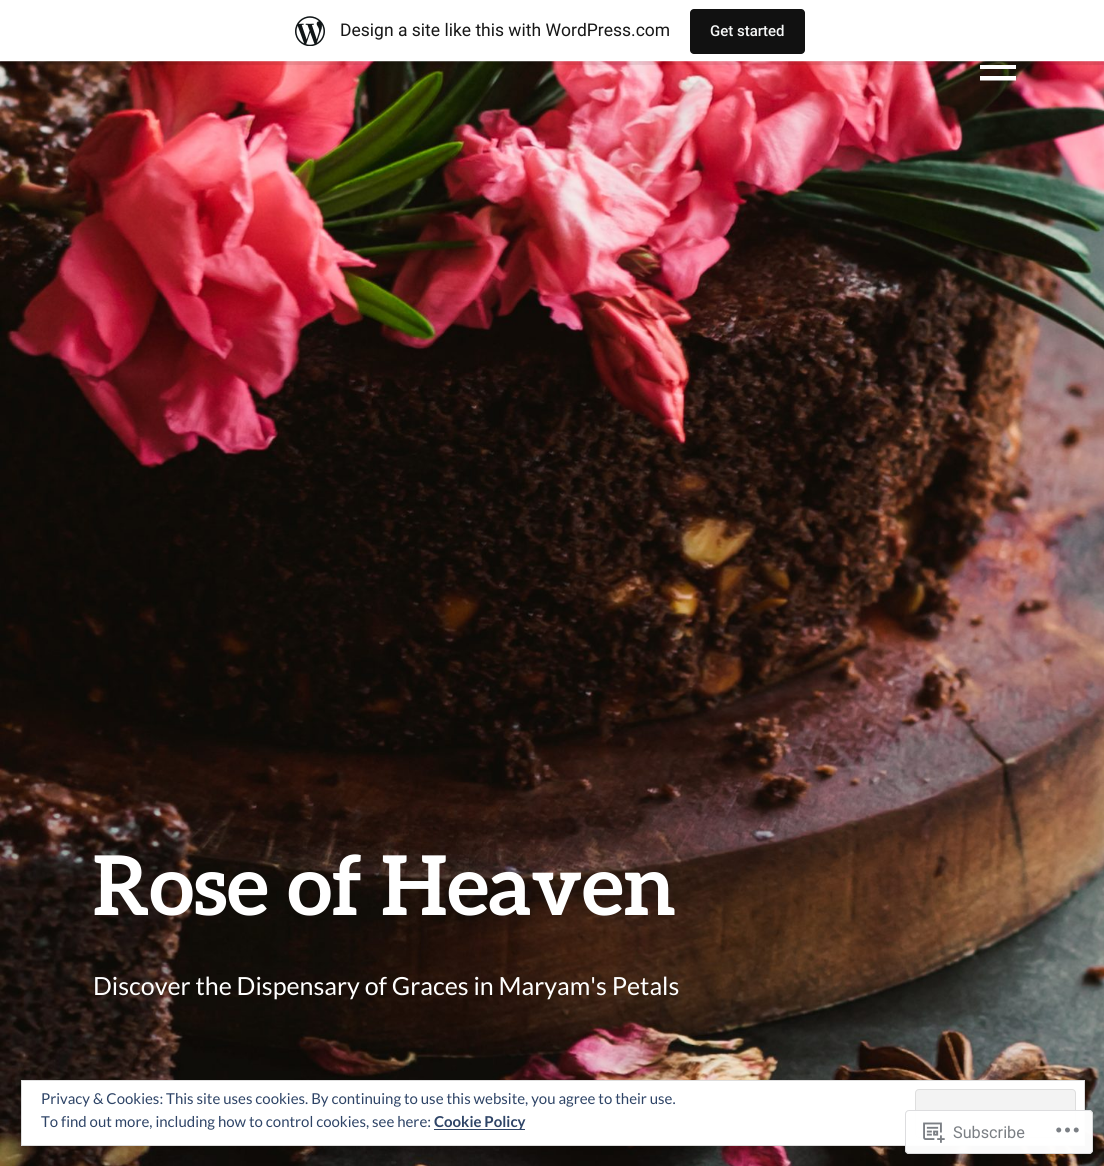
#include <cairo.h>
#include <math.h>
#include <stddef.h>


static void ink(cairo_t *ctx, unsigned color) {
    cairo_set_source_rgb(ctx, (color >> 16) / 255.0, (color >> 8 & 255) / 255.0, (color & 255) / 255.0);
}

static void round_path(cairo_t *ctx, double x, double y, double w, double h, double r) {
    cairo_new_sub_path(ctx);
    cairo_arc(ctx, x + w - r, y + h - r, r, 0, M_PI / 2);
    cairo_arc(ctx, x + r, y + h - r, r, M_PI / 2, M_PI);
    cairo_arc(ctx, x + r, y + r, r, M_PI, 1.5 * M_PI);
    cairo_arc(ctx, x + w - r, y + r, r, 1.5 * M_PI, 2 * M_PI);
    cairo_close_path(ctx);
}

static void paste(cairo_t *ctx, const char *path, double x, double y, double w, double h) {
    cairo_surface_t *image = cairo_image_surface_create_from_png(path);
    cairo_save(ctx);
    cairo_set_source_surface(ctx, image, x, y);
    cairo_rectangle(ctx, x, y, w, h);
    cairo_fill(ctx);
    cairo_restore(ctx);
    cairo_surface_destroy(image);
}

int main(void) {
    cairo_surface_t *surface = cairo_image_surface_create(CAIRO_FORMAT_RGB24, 1104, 1166);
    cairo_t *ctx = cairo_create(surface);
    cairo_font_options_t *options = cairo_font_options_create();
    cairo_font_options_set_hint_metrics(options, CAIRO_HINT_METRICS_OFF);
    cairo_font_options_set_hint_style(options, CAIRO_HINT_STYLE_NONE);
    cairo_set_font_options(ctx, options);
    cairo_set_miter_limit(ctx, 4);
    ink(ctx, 0xFFFFFF);
    cairo_paint(ctx);
    paste(ctx, "media/2.png", 0, 61, 1104, 1105);
    cairo_set_source_rgba(ctx, 0, 0, 0, 0.08);
    cairo_new_path(ctx);
    cairo_move_to(ctx, 1, 61);
    cairo_line_to(ctx, 1, 65);
    cairo_line_to(ctx, 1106, 65);
    cairo_line_to(ctx, 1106, 4);
    cairo_line_to(ctx, 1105, 4);
    cairo_line_to(ctx, 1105, 61);
    cairo_close_path(ctx);
    cairo_fill(ctx);
    paste(ctx, "media/1.png", 295, 16, 30, 30);
    cairo_select_font_face(ctx, "Roboto", CAIRO_FONT_SLANT_NORMAL, CAIRO_FONT_WEIGHT_NORMAL);
    cairo_set_font_size(ctx, 17.5);
    ink(ctx, 0x171717);
    cairo_move_to(ctx, 340, 36);
    cairo_show_text(ctx, "Design a site like this with WordPress.com");
    ink(ctx, 0x111111);
    round_path(ctx, 690, 9, 115, 45, 4);
    cairo_fill(ctx);
    cairo_select_font_face(ctx, "Roboto Medium", CAIRO_FONT_SLANT_NORMAL, CAIRO_FONT_WEIGHT_NORMAL);
    cairo_set_font_size(ctx, 15);
    ink(ctx, 0xF6F7F7);
    cairo_move_to(ctx, 710, 36);
    cairo_show_text(ctx, "Get started");
    ink(ctx, 0xFFFFFF);
    cairo_new_path(ctx);
    cairo_move_to(ctx, 980, 80.5);
    cairo_line_to(ctx, 980, 76);
    cairo_line_to(ctx, 1016, 76);
    cairo_line_to(ctx, 1016, 80.5);
    cairo_close_path(ctx);
    cairo_move_to(ctx, 980, 53.5);
    cairo_line_to(ctx, 1016, 53.5);
    cairo_line_to(ctx, 1016, 58);
    cairo_line_to(ctx, 980, 58);
    cairo_close_path(ctx);
    cairo_move_to(ctx, 980, 69);
    cairo_line_to(ctx, 980, 65);
    cairo_line_to(ctx, 1016, 65);
    cairo_line_to(ctx, 1016, 69);
    cairo_close_path(ctx);
    cairo_fill(ctx);
    cairo_select_font_face(ctx, "Aleo", CAIRO_FONT_SLANT_NORMAL, CAIRO_FONT_WEIGHT_BOLD);
    cairo_set_font_size(ctx, 82.5);
    cairo_move_to(ctx, 93, 915);
    cairo_show_text(ctx, "Rose of Heaven");
    cairo_select_font_face(ctx, "Lato", CAIRO_FONT_SLANT_NORMAL, CAIRO_FONT_WEIGHT_NORMAL);
    cairo_set_font_size(ctx, 25);
    cairo_move_to(ctx, 93, 995);
    cairo_show_text(ctx, "Discover the Dispensary of Graces in Maryam's Petals");
    cairo_rectangle(ctx, 21.5, 1080.5, 1063, 65);
    cairo_fill_preserve(ctx);
    ink(ctx, 0xDEDEDE);
    cairo_set_line_width(ctx, 1);
    cairo_stroke(ctx);
    cairo_set_font_size(ctx, 15);
    ink(ctx, 0x2E4467);
    cairo_move_to(ctx, 41, 1104);
    cairo_show_text(ctx, "Privacy & Cookies: This site uses cookies. By continuing to use this website, you agree to their use.");
    ink(ctx, 0xF3F3F3);
    round_path(ctx, 915.5, 1089.5, 160, 48, 3.5);
    cairo_fill_preserve(ctx);
    ink(ctx, 0xDEDEDE);
    cairo_stroke(ctx);
    ink(ctx, 0x2E4467);
    cairo_move_to(ctx, 41, 1127);
    cairo_show_text(ctx, "To find out more, including how to control cookies, see here:");
    cairo_rectangle(ctx, 434, 1129, 91, 1);
    cairo_fill(ctx);
    cairo_select_font_face(ctx, "Lato", CAIRO_FONT_SLANT_NORMAL, CAIRO_FONT_WEIGHT_BOLD);
    cairo_move_to(ctx, 434, 1127);
    cairo_show_text(ctx, "Cookie Policy");
    cairo_set_source_rgba(ctx, 1, 1, 1, 0.98);
    round_path(ctx, 905, 1110, 188, 44, 4);
    cairo_fill(ctx);
    round_path(ctx, 905.5, 1110.5, 187, 43, 3.5);
    cairo_set_source_rgba(ctx, 0.863, 0.863, 0.871, 0.98);
    cairo_stroke(ctx);
    paste(ctx, "media/3.png", 923, 1122, 22, 21);
    cairo_select_font_face(ctx, "Roboto", CAIRO_FONT_SLANT_NORMAL, CAIRO_FONT_WEIGHT_NORMAL);
    cairo_set_font_size(ctx, 16.25);
    ink(ctx, 0x7B7F84);
    cairo_move_to(ctx, 953, 1138);
    cairo_show_text(ctx, "Subscribe");
    paste(ctx, "media/4.png", 1056, 1127, 23, 6);
    cairo_surface_write_to_png(surface, "image.png");
    cairo_font_options_destroy(options);
    cairo_destroy(ctx);
    cairo_surface_destroy(surface);
    return 0;
}
